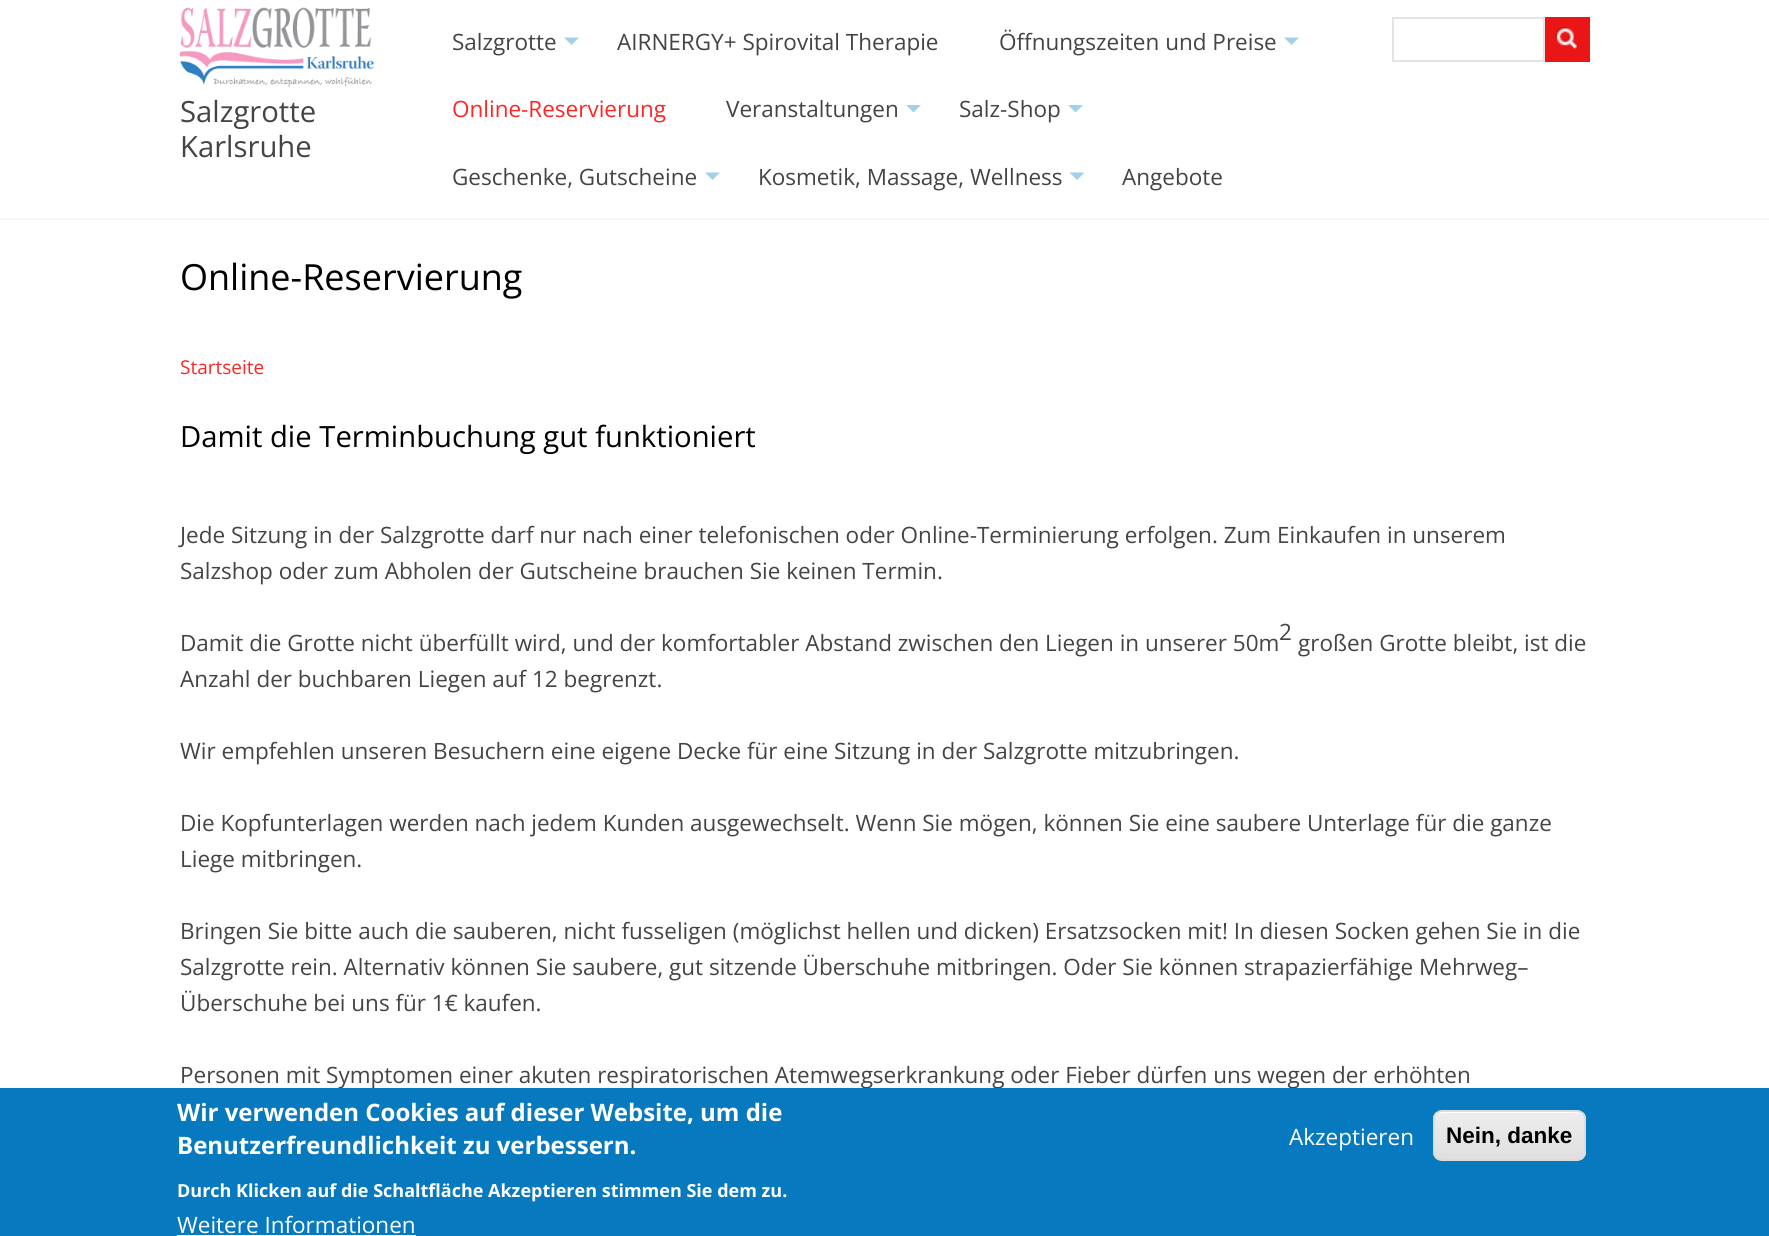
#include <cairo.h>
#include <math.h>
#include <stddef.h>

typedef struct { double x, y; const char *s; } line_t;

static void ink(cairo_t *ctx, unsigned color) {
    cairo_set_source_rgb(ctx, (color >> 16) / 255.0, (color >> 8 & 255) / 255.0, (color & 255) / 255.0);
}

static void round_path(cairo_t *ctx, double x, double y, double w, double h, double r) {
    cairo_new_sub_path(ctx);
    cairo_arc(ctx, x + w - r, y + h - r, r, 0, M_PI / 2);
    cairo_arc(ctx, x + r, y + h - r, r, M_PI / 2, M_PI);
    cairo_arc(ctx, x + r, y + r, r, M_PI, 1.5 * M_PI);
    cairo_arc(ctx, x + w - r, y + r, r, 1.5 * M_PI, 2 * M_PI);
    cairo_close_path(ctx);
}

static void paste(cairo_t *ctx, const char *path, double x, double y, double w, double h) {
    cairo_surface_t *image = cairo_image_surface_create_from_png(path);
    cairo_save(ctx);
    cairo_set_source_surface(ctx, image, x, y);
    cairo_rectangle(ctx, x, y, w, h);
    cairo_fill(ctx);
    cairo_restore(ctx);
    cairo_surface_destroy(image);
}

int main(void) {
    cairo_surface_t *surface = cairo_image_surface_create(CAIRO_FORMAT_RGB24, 1769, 1236);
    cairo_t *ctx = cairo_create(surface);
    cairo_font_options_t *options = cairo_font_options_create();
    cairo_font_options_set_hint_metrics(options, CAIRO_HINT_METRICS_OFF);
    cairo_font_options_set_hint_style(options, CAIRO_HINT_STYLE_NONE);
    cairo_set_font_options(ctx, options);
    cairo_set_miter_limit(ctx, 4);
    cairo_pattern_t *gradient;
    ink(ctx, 0xFFFFFF);
    cairo_paint(ctx);
    ink(ctx, 0xF7F7F7);
    cairo_rectangle(ctx, 0, 218, 1769, 2);
    cairo_fill(ctx);
    paste(ctx, "media/1.png", 180, 7, 194, 80);
    cairo_select_font_face(ctx, "Open Sans", CAIRO_FONT_SLANT_NORMAL, CAIRO_FONT_WEIGHT_NORMAL);
    cairo_set_font_size(ctx, 29.25);
    ink(ctx, 0x444444);
    cairo_move_to(ctx, 180, 122);
    cairo_show_text(ctx, "Salzgrotte");
    cairo_move_to(ctx, 180, 157);
    cairo_show_text(ctx, "Karlsruhe");
    cairo_set_font_size(ctx, 22.5);
    cairo_move_to(ctx, 452, 50);
    cairo_show_text(ctx, "Salzgrotte");
    ink(ctx, 0xA1D1E8);
    cairo_new_path(ctx);
    cairo_move_to(ctx, 564, 37.5);
    cairo_line_to(ctx, 579, 37.5);
    cairo_line_to(ctx, 571.5, 45);
    cairo_close_path(ctx);
    cairo_fill(ctx);
    ink(ctx, 0x444444);
    cairo_move_to(ctx, 617, 50);
    cairo_show_text(ctx, "AIRNERGY+ Spirovital Therapie");
    cairo_move_to(ctx, 999, 50);
    cairo_show_text(ctx, "Öffnungszeiten und Preise");
    ink(ctx, 0xA1D1E8);
    cairo_new_path(ctx);
    cairo_move_to(ctx, 1284, 37.5);
    cairo_line_to(ctx, 1299, 37.5);
    cairo_line_to(ctx, 1291.5, 45);
    cairo_close_path(ctx);
    cairo_fill(ctx);
    ink(ctx, 0xFD2626);
    cairo_move_to(ctx, 452, 117);
    cairo_show_text(ctx, "Online-Reservierung");
    ink(ctx, 0x444444);
    cairo_move_to(ctx, 726, 117);
    cairo_show_text(ctx, "Veranstaltungen");
    ink(ctx, 0xA1D1E8);
    cairo_new_path(ctx);
    cairo_move_to(ctx, 906, 105);
    cairo_line_to(ctx, 921, 105);
    cairo_line_to(ctx, 913.5, 112.5);
    cairo_close_path(ctx);
    cairo_fill(ctx);
    ink(ctx, 0x444444);
    cairo_move_to(ctx, 959, 117);
    cairo_show_text(ctx, "Salz-Shop");
    ink(ctx, 0xA1D1E8);
    cairo_new_path(ctx);
    cairo_move_to(ctx, 1068, 105);
    cairo_line_to(ctx, 1083, 105);
    cairo_line_to(ctx, 1075.5, 112.5);
    cairo_close_path(ctx);
    cairo_fill(ctx);
    ink(ctx, 0x444444);
    cairo_move_to(ctx, 452, 185);
    cairo_show_text(ctx, "Geschenke, Gutscheine");
    ink(ctx, 0xA1D1E8);
    cairo_new_path(ctx);
    cairo_move_to(ctx, 705, 172.5);
    cairo_line_to(ctx, 720, 172.5);
    cairo_line_to(ctx, 712.5, 180);
    cairo_close_path(ctx);
    cairo_fill(ctx);
    ink(ctx, 0x444444);
    cairo_move_to(ctx, 758, 185);
    cairo_show_text(ctx, "Kosmetik, Massage, Wellness");
    ink(ctx, 0xA1D1E8);
    cairo_new_path(ctx);
    cairo_move_to(ctx, 1069.5, 172.5);
    cairo_line_to(ctx, 1084.5, 172.5);
    cairo_line_to(ctx, 1077, 180);
    cairo_close_path(ctx);
    cairo_fill(ctx);
    ink(ctx, 0x444444);
    cairo_move_to(ctx, 1122, 185);
    cairo_show_text(ctx, "Angebote");
    cairo_rectangle(ctx, 1393, 18, 151, 43);
    ink(ctx, 0xE3E3E3);
    cairo_stroke(ctx);
    ink(ctx, 0xEA1616);
    cairo_rectangle(ctx, 1545, 17, 45, 45);
    cairo_fill(ctx);
    paste(ctx, "media/2.png", 1555, 26, 22, 23);
    cairo_set_font_size(ctx, 36);
    ink(ctx, 0x000000);
    cairo_move_to(ctx, 180, 290);
    cairo_show_text(ctx, "Online-Reservierung");
    cairo_set_font_size(ctx, 19);
    ink(ctx, 0xFD2626);
    cairo_move_to(ctx, 180, 374);
    cairo_show_text(ctx, "Startseite");
    cairo_set_font_size(ctx, 29.25);
    ink(ctx, 0x000000);
    cairo_move_to(ctx, 180, 447);
    cairo_show_text(ctx, "Damit die Terminbuchung gut funktioniert");
    cairo_set_font_size(ctx, 22.5);
    ink(ctx, 0x444444);
    {
        static const line_t items[] = {
            {180, 543, "Jede Sitzung in der Salzgrotte darf nur nach einer telefonischen oder Online-Terminierung erfolgen. Zum Einkaufen in unserem"},
            {180, 579, "Salzshop oder zum Abholen der Gutscheine brauchen Sie keinen Termin."},
            {180, 651, "Damit die Grotte nicht überfüllt wird, und der komfortabler Abstand zwischen den Liegen in unserer 50m"},
            {1279, 640, "2"},
            {1298, 651, "großen Grotte bleibt, ist die"},
            {180, 687, "Anzahl der buchbaren Liegen auf 12 begrenzt."},
            {180, 759, "Wir empfehlen unseren Besuchern eine eigene Decke für eine Sitzung in der Salzgrotte mitzubringen."},
            {180, 831, "Die Kopfunterlagen werden nach jedem Kunden ausgewechselt. Wenn Sie mögen, können Sie eine saubere Unterlage für die ganze"},
            {180, 867, "Liege mitbringen."},
            {180, 939, "Bringen Sie bitte auch die sauberen, nicht fusseligen (möglichst hellen und dicken) Ersatzsocken mit! In diesen Socken gehen Sie in die"},
            {180, 975, "Salzgrotte rein. Alternativ können Sie saubere, gut sitzende Überschuhe mitbringen. Oder Sie können strapazierfähige Mehrweg–"},
            {180, 1011, "Überschuhe bei uns für 1€ kaufen."},
            {180, 1083, "Personen mit Symptomen einer akuten respiratorischen Atemwegserkrankung oder Fieber dürfen uns wegen der erhöhten"},
        };
        for (size_t i = 0; i < sizeof items / sizeof *items; i++) {
            cairo_move_to(ctx, items[i].x, items[i].y);
            cairo_show_text(ctx, items[i].s);
        }
    }
    ink(ctx, 0x0779BF);
    cairo_rectangle(ctx, 0, 1088, 1769, 148);
    cairo_fill(ctx);
    cairo_select_font_face(ctx, "Open Sans", CAIRO_FONT_SLANT_NORMAL, CAIRO_FONT_WEIGHT_BOLD);
    cairo_set_font_size(ctx, 24);
    ink(ctx, 0xFFFFFF);
    cairo_move_to(ctx, 177, 1121);
    cairo_show_text(ctx, "Wir verwenden Cookies auf dieser Website, um die");
    cairo_move_to(ctx, 177, 1154);
    cairo_show_text(ctx, "Benutzerfreundlichkeit zu verbessern.");
    cairo_set_font_size(ctx, 18);
    cairo_move_to(ctx, 177, 1197);
    cairo_show_text(ctx, "Durch Klicken auf die Schaltfläche Akzeptieren stimmen Sie dem zu.");
    cairo_select_font_face(ctx, "Open Sans", CAIRO_FONT_SLANT_NORMAL, CAIRO_FONT_WEIGHT_NORMAL);
    cairo_set_font_size(ctx, 22.5);
    cairo_move_to(ctx, 177, 1233);
    cairo_show_text(ctx, "Weitere Informationen");
    cairo_rectangle(ctx, 177, 1235, 239, 1);
    cairo_fill(ctx);
    cairo_move_to(ctx, 1289, 1145);
    cairo_show_text(ctx, "Akzeptieren");
    cairo_save(ctx);
    round_path(ctx, 1433, 1110, 153, 51, 9);
    cairo_clip(ctx);
    gradient = cairo_pattern_create_linear(1509, 1112, 1509, 1160);
    cairo_pattern_add_color_stop_rgba(gradient, 0.05, 0.929, 0.929, 0.929, 1);
    cairo_pattern_add_color_stop_rgba(gradient, 1, 0.875, 0.875, 0.875, 1);
    cairo_set_source(ctx, gradient);
    cairo_pattern_destroy(gradient);
    cairo_rectangle(ctx, 1433, 1112, 153, 48);
    cairo_fill(ctx);
    cairo_restore(ctx);
    cairo_new_path(ctx);
    cairo_move_to(ctx, 1442, 1113);
    cairo_line_to(ctx, 1576, 1113);
    cairo_curve_to(ctx, 1581, 1113, 1584, 1116, 1584, 1120);
    cairo_curve_to(ctx, 1584, 1116, 1580, 1112, 1576, 1112);
    cairo_line_to(ctx, 1442, 1112);
    cairo_curve_to(ctx, 1438, 1112, 1434, 1116, 1434, 1120);
    cairo_curve_to(ctx, 1434, 1116, 1437, 1113, 1442, 1113);
    cairo_close_path(ctx);
    cairo_fill(ctx);
    round_path(ctx, 1434, 1111, 151, 49, 8);
    ink(ctx, 0xDCDCDC);
    cairo_stroke(ctx);
    cairo_select_font_face(ctx, "Liberation Sans", CAIRO_FONT_SLANT_NORMAL, CAIRO_FONT_WEIGHT_BOLD);
    ink(ctx, 0x000000);
    cairo_move_to(ctx, 1446, 1143);
    cairo_show_text(ctx, "Nein, danke");
    cairo_surface_write_to_png(surface, "image.png");
    cairo_font_options_destroy(options);
    cairo_destroy(ctx);
    cairo_surface_destroy(surface);
    return 0;
}
